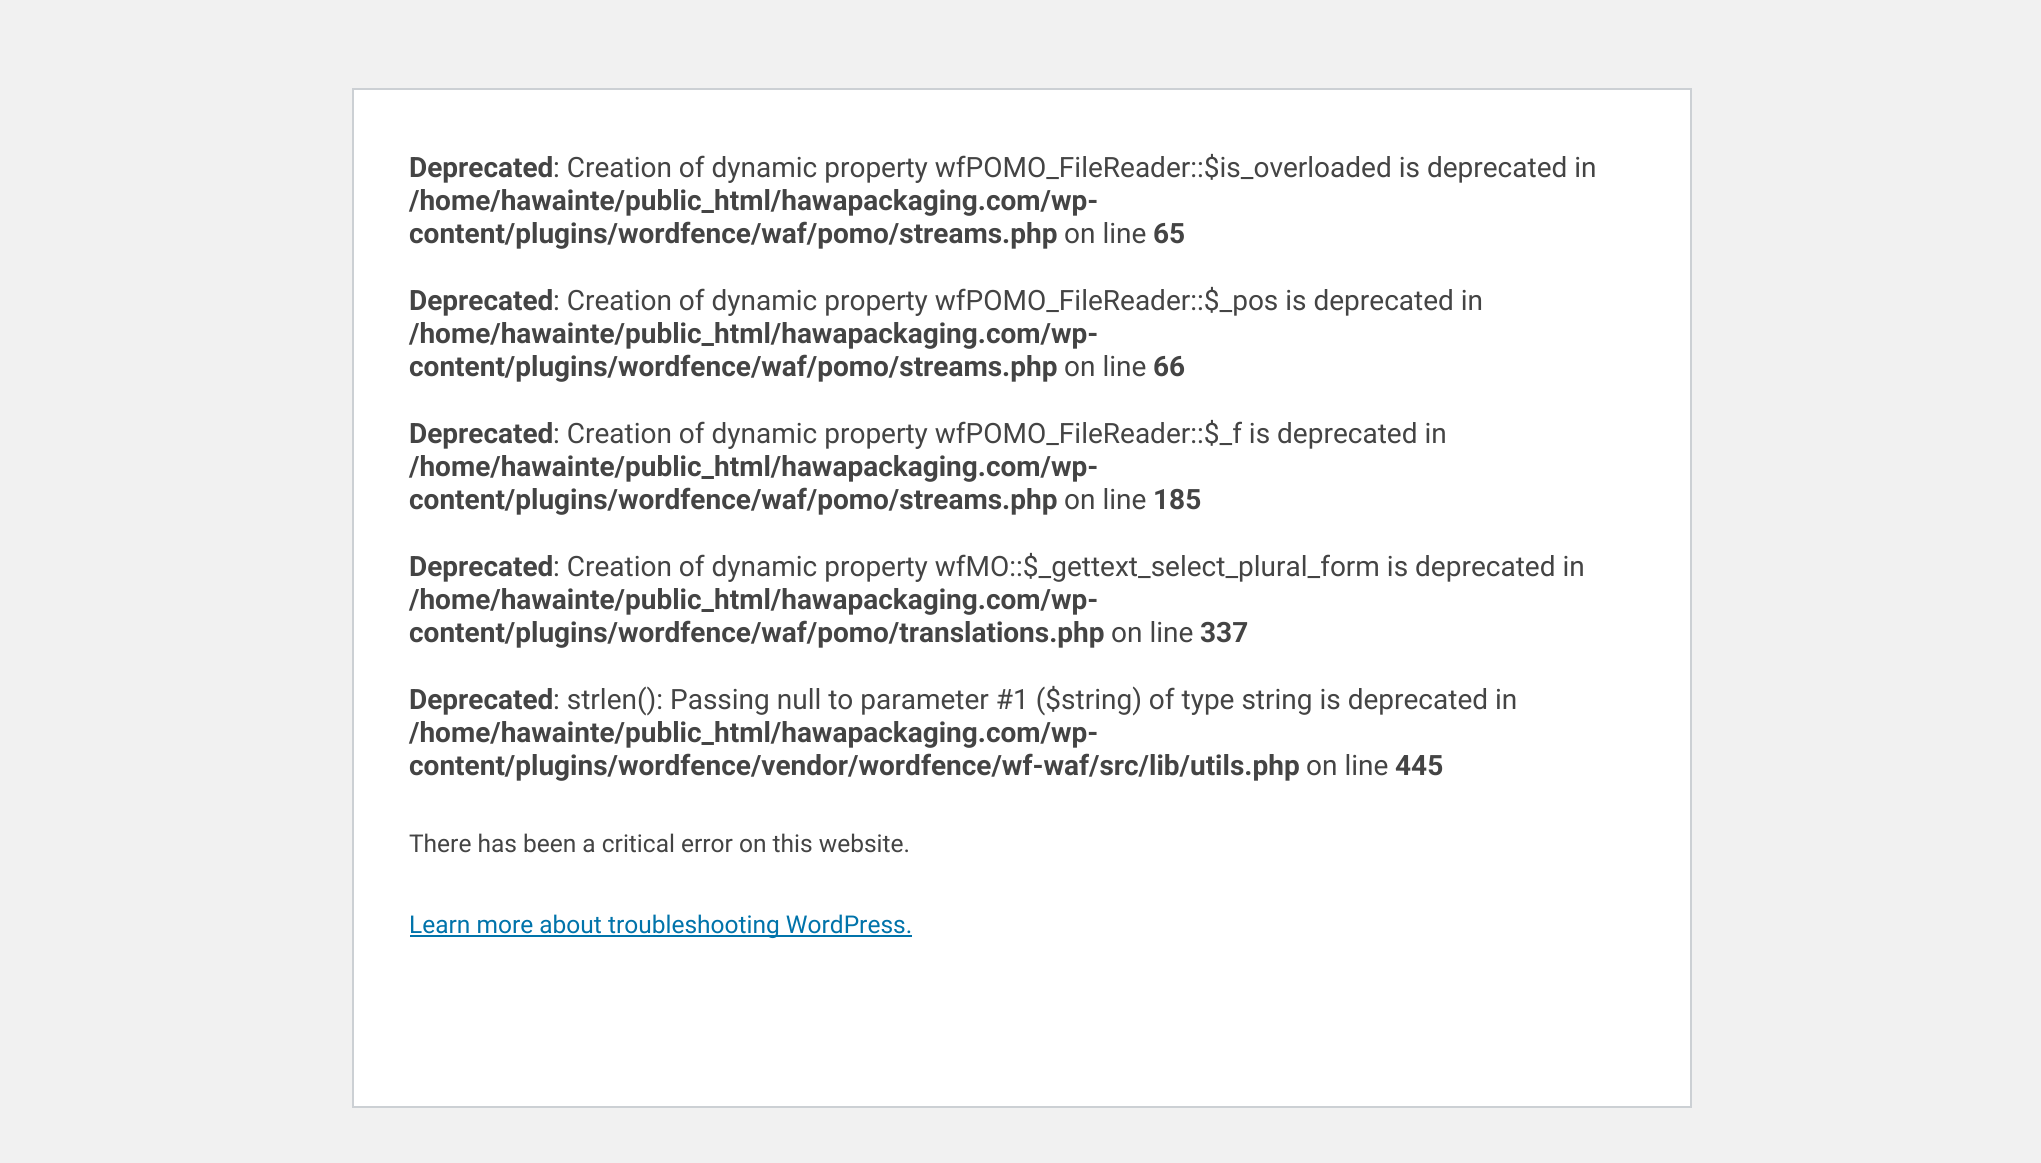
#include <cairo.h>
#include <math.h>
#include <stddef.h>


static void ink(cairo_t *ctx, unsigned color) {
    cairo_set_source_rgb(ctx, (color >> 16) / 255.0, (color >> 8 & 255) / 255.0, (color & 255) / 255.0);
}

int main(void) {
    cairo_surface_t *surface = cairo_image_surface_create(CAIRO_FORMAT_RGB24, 2041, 1163);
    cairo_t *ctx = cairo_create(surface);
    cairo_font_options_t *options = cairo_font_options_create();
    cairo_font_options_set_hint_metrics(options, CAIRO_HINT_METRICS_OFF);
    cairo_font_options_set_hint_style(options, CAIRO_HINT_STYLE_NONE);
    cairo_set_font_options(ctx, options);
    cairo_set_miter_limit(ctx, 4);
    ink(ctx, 0xF1F1F1);
    cairo_paint(ctx);
    ink(ctx, 0xFFFFFF);
    cairo_rectangle(ctx, 353, 89, 1338, 1018);
    cairo_fill_preserve(ctx);
    ink(ctx, 0xCCD0D4);
    cairo_stroke(ctx);
    cairo_select_font_face(ctx, "Roboto", CAIRO_FONT_SLANT_NORMAL, CAIRO_FONT_WEIGHT_BOLD);
    cairo_set_font_size(ctx, 28);
    ink(ctx, 0x444444);
    cairo_move_to(ctx, 409, 177);
    cairo_show_text(ctx, "Deprecated");
    cairo_select_font_face(ctx, "Roboto", CAIRO_FONT_SLANT_NORMAL, CAIRO_FONT_WEIGHT_NORMAL);
    cairo_move_to(ctx, 553, 177);
    cairo_show_text(ctx, ": Creation of dynamic property wfPOMO_FileReader::$is_overloaded is deprecated in");
    cairo_select_font_face(ctx, "Roboto", CAIRO_FONT_SLANT_NORMAL, CAIRO_FONT_WEIGHT_BOLD);
    cairo_move_to(ctx, 409, 210);
    cairo_show_text(ctx, "/home/hawainte/public_html/hawapackaging.com/wp-");
    cairo_move_to(ctx, 409, 243);
    cairo_show_text(ctx, "content/plugins/wordfence/waf/pomo/streams.php");
    cairo_select_font_face(ctx, "Roboto", CAIRO_FONT_SLANT_NORMAL, CAIRO_FONT_WEIGHT_NORMAL);
    cairo_move_to(ctx, 1064, 243);
    cairo_show_text(ctx, "on line");
    cairo_select_font_face(ctx, "Roboto", CAIRO_FONT_SLANT_NORMAL, CAIRO_FONT_WEIGHT_BOLD);
    cairo_move_to(ctx, 1153, 243);
    cairo_show_text(ctx, "65");
    cairo_move_to(ctx, 409, 310);
    cairo_show_text(ctx, "Deprecated");
    cairo_select_font_face(ctx, "Roboto", CAIRO_FONT_SLANT_NORMAL, CAIRO_FONT_WEIGHT_NORMAL);
    cairo_move_to(ctx, 553, 310);
    cairo_show_text(ctx, ": Creation of dynamic property wfPOMO_FileReader::$_pos is deprecated in");
    cairo_select_font_face(ctx, "Roboto", CAIRO_FONT_SLANT_NORMAL, CAIRO_FONT_WEIGHT_BOLD);
    cairo_move_to(ctx, 409, 343);
    cairo_show_text(ctx, "/home/hawainte/public_html/hawapackaging.com/wp-");
    cairo_move_to(ctx, 409, 376);
    cairo_show_text(ctx, "content/plugins/wordfence/waf/pomo/streams.php");
    cairo_select_font_face(ctx, "Roboto", CAIRO_FONT_SLANT_NORMAL, CAIRO_FONT_WEIGHT_NORMAL);
    cairo_move_to(ctx, 1064, 376);
    cairo_show_text(ctx, "on line");
    cairo_select_font_face(ctx, "Roboto", CAIRO_FONT_SLANT_NORMAL, CAIRO_FONT_WEIGHT_BOLD);
    cairo_move_to(ctx, 1153, 376);
    cairo_show_text(ctx, "66");
    cairo_move_to(ctx, 409, 443);
    cairo_show_text(ctx, "Deprecated");
    cairo_select_font_face(ctx, "Roboto", CAIRO_FONT_SLANT_NORMAL, CAIRO_FONT_WEIGHT_NORMAL);
    cairo_move_to(ctx, 553, 443);
    cairo_show_text(ctx, ": Creation of dynamic property wfPOMO_FileReader::$_f is deprecated in");
    cairo_select_font_face(ctx, "Roboto", CAIRO_FONT_SLANT_NORMAL, CAIRO_FONT_WEIGHT_BOLD);
    cairo_move_to(ctx, 409, 476);
    cairo_show_text(ctx, "/home/hawainte/public_html/hawapackaging.com/wp-");
    cairo_move_to(ctx, 409, 509);
    cairo_show_text(ctx, "content/plugins/wordfence/waf/pomo/streams.php");
    cairo_select_font_face(ctx, "Roboto", CAIRO_FONT_SLANT_NORMAL, CAIRO_FONT_WEIGHT_NORMAL);
    cairo_move_to(ctx, 1064, 509);
    cairo_show_text(ctx, "on line");
    cairo_select_font_face(ctx, "Roboto", CAIRO_FONT_SLANT_NORMAL, CAIRO_FONT_WEIGHT_BOLD);
    cairo_move_to(ctx, 1153, 509);
    cairo_show_text(ctx, "185");
    cairo_move_to(ctx, 409, 576);
    cairo_show_text(ctx, "Deprecated");
    cairo_select_font_face(ctx, "Roboto", CAIRO_FONT_SLANT_NORMAL, CAIRO_FONT_WEIGHT_NORMAL);
    cairo_move_to(ctx, 553, 576);
    cairo_show_text(ctx, ": Creation of dynamic property wfMO::$_gettext_select_plural_form is deprecated in");
    cairo_select_font_face(ctx, "Roboto", CAIRO_FONT_SLANT_NORMAL, CAIRO_FONT_WEIGHT_BOLD);
    cairo_move_to(ctx, 409, 609);
    cairo_show_text(ctx, "/home/hawainte/public_html/hawapackaging.com/wp-");
    cairo_move_to(ctx, 409, 642);
    cairo_show_text(ctx, "content/plugins/wordfence/waf/pomo/translations.php");
    cairo_select_font_face(ctx, "Roboto", CAIRO_FONT_SLANT_NORMAL, CAIRO_FONT_WEIGHT_NORMAL);
    cairo_move_to(ctx, 1111, 642);
    cairo_show_text(ctx, "on line");
    cairo_select_font_face(ctx, "Roboto", CAIRO_FONT_SLANT_NORMAL, CAIRO_FONT_WEIGHT_BOLD);
    cairo_move_to(ctx, 1200, 642);
    cairo_show_text(ctx, "337");
    cairo_move_to(ctx, 409, 709);
    cairo_show_text(ctx, "Deprecated");
    cairo_select_font_face(ctx, "Roboto", CAIRO_FONT_SLANT_NORMAL, CAIRO_FONT_WEIGHT_NORMAL);
    cairo_move_to(ctx, 553, 709);
    cairo_show_text(ctx, ": strlen(): Passing null to parameter #1 ($string) of type string is deprecated in");
    cairo_select_font_face(ctx, "Roboto", CAIRO_FONT_SLANT_NORMAL, CAIRO_FONT_WEIGHT_BOLD);
    cairo_move_to(ctx, 409, 742);
    cairo_show_text(ctx, "/home/hawainte/public_html/hawapackaging.com/wp-");
    cairo_move_to(ctx, 409, 775);
    cairo_show_text(ctx, "content/plugins/wordfence/vendor/wordfence/wf-waf/src/lib/utils.php");
    cairo_select_font_face(ctx, "Roboto", CAIRO_FONT_SLANT_NORMAL, CAIRO_FONT_WEIGHT_NORMAL);
    cairo_move_to(ctx, 1306, 775);
    cairo_show_text(ctx, "on line");
    cairo_select_font_face(ctx, "Roboto", CAIRO_FONT_SLANT_NORMAL, CAIRO_FONT_WEIGHT_BOLD);
    cairo_move_to(ctx, 1395, 775);
    cairo_show_text(ctx, "445");
    cairo_select_font_face(ctx, "Roboto", CAIRO_FONT_SLANT_NORMAL, CAIRO_FONT_WEIGHT_NORMAL);
    cairo_set_font_size(ctx, 24.5);
    cairo_move_to(ctx, 409, 852);
    cairo_show_text(ctx, "There has been a critical error on this website.");
    ink(ctx, 0x0073AA);
    cairo_rectangle(ctx, 410, 935, 502, 2);
    cairo_fill(ctx);
    cairo_move_to(ctx, 409, 933);
    cairo_show_text(ctx, "Learn more about troubleshooting WordPress.");
    cairo_surface_write_to_png(surface, "image.png");
    cairo_font_options_destroy(options);
    cairo_destroy(ctx);
    cairo_surface_destroy(surface);
    return 0;
}
